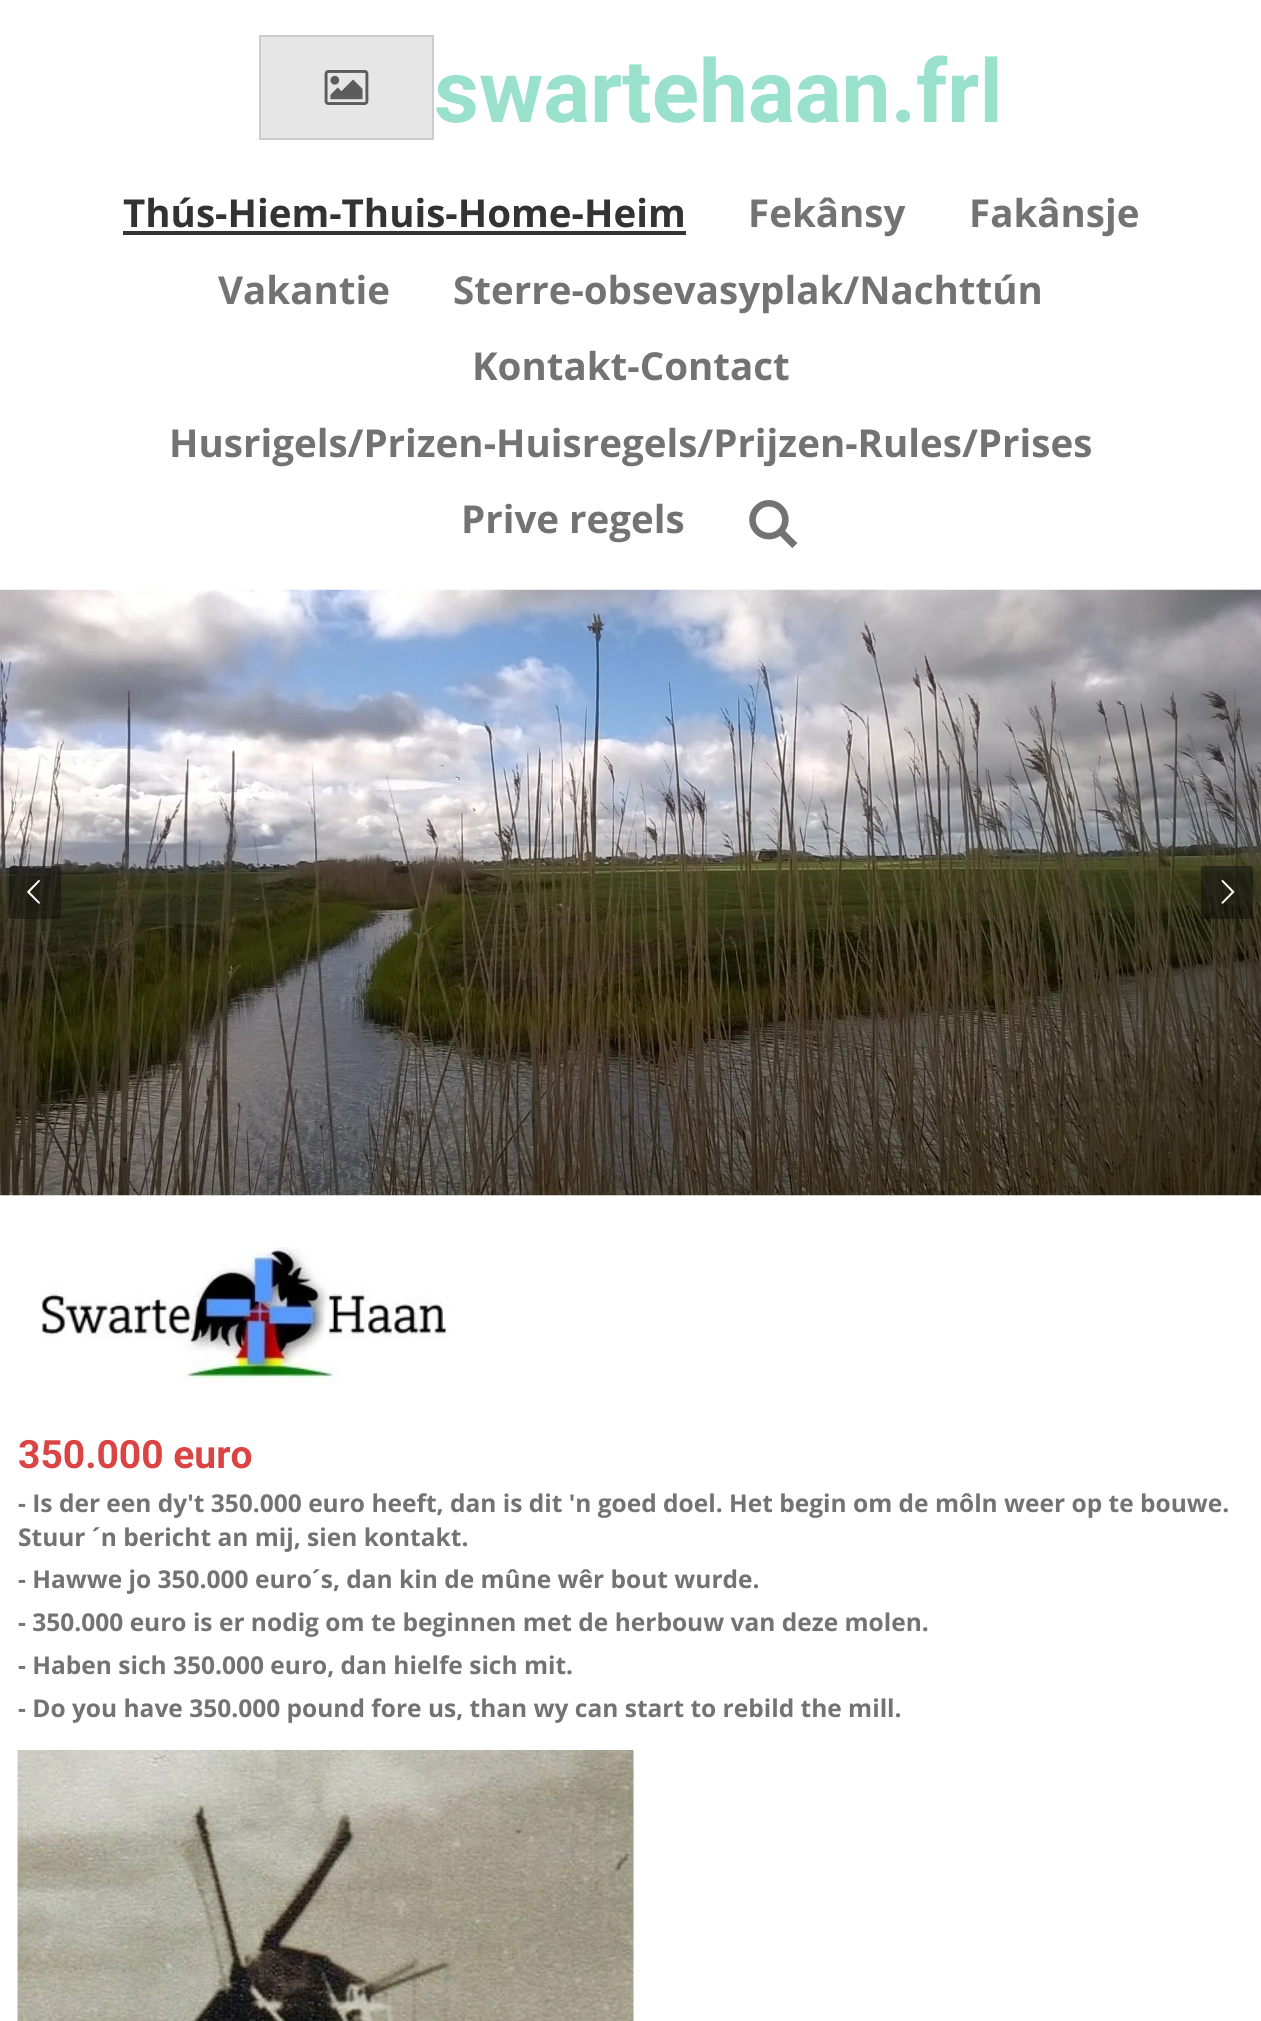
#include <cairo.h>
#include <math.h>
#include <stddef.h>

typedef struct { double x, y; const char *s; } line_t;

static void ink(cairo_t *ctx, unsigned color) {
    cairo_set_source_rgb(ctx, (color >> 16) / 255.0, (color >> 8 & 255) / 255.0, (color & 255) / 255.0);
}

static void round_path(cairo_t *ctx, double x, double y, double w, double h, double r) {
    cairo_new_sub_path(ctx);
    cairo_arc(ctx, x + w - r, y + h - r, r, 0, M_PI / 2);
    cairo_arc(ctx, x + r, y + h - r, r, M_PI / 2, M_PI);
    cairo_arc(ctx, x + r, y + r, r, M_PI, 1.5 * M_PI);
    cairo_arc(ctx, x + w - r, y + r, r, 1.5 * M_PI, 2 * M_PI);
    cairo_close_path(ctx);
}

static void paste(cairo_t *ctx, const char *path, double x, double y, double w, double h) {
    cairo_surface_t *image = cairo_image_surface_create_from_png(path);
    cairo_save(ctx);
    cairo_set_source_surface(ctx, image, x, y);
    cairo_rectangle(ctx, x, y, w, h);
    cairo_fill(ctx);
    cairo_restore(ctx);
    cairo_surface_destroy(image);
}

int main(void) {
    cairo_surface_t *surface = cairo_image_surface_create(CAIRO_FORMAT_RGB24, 1261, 2021);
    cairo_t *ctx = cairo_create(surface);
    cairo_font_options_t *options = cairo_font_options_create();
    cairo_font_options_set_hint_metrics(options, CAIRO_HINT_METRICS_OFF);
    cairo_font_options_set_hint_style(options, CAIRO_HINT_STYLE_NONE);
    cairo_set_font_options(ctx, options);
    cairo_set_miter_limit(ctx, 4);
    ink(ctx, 0xFFFFFF);
    cairo_paint(ctx);
    ink(ctx, 0xE6E6E6);
    cairo_rectangle(ctx, 260, 36, 173, 103);
    cairo_fill_preserve(ctx);
    ink(ctx, 0xCCCCCC);
    cairo_stroke(ctx);
    paste(ctx, "media/1.png", 324, 70, 45, 35);
    cairo_select_font_face(ctx, "Roboto", CAIRO_FONT_SLANT_NORMAL, CAIRO_FONT_WEIGHT_BOLD);
    cairo_set_font_size(ctx, 87.5);
    ink(ctx, 0x9AE1CC);
    cairo_move_to(ctx, 434, 122);
    cairo_show_text(ctx, "swartehaan.frl");
    cairo_select_font_face(ctx, "Open Sans", CAIRO_FONT_SLANT_NORMAL, CAIRO_FONT_WEIGHT_BOLD);
    cairo_set_font_size(ctx, 38.5);
    ink(ctx, 0x333333);
    cairo_move_to(ctx, 123, 227);
    cairo_show_text(ctx, "Thús-Hiem-Thuis-Home-Heim");
    cairo_rectangle(ctx, 123, 231, 563, 4);
    cairo_fill(ctx);
    ink(ctx, 0x737373);
    {
        static const line_t items[] = {
            {748, 227, "Fekânsy"},
            {969, 227, "Fakânsje"},
            {218, 304, "Vakantie"},
            {453, 304, "Sterre-obsevasyplak/Nachttún"},
            {472, 380, "Kontakt-Contact"},
            {169, 457, "Husrigels/Prizen-Huisregels/Prijzen-Rules/Prises"},
            {461, 533, "Prive regels"},
        };
        for (size_t i = 0; i < sizeof items / sizeof *items; i++) {
            cairo_move_to(ctx, items[i].x, items[i].y);
            cairo_show_text(ctx, items[i].s);
        }
    }
    paste(ctx, "media/2.png", 749, 500, 49, 49);
    paste(ctx, "media/3.png", 0, 589, 1261, 607);
    cairo_set_source_rgba(ctx, 0.059, 0.059, 0.059, 0.5);
    round_path(ctx, 9, 866, 52, 53, 2.5);
    cairo_fill(ctx);
    paste(ctx, "media/4.png", 27, 880, 13, 24);
    round_path(ctx, 1201, 866, 52, 53, 2.5);
    cairo_fill(ctx);
    paste(ctx, "media/5.png", 1221, 880, 14, 24);
    paste(ctx, "media/6.png", 40, 1247, 409, 137);
    cairo_select_font_face(ctx, "Roboto", CAIRO_FONT_SLANT_NORMAL, CAIRO_FONT_WEIGHT_BOLD);
    cairo_set_font_size(ctx, 39);
    ink(ctx, 0xDA4444);
    cairo_move_to(ctx, 18, 1468);
    cairo_show_text(ctx, "350.000 euro");
    cairo_select_font_face(ctx, "Open Sans", CAIRO_FONT_SLANT_NORMAL, CAIRO_FONT_WEIGHT_BOLD);
    cairo_set_font_size(ctx, 24.5);
    ink(ctx, 0x737373);
    {
        static const line_t items[] = {
            {18, 1512, "- Is der een dy't 350.000 euro heeft, dan is dit 'n goed doel. Het begin om de môln weer op te bouwe."},
            {18, 1546, "Stuur ´n bericht an mij, sien kontakt."},
            {18, 1588, "- Hawwe jo 350.000 euro´s, dan kin de mûne wêr bout wurde."},
            {18, 1631, "- 350.000 euro is er nodig om te beginnen met de herbouw van deze molen."},
            {18, 1674, "- Haben sich 350.000 euro, dan hielfe sich mit."},
            {18, 1717, "- Do you have 350.000 pound fore us, than wy can start to rebild the mill."},
        };
        for (size_t i = 0; i < sizeof items / sizeof *items; i++) {
            cairo_move_to(ctx, items[i].x, items[i].y);
            cairo_show_text(ctx, items[i].s);
        }
    }
    paste(ctx, "media/7.png", 17, 1750, 617, 271);
    cairo_surface_write_to_png(surface, "image.png");
    cairo_font_options_destroy(options);
    cairo_destroy(ctx);
    cairo_surface_destroy(surface);
    return 0;
}
